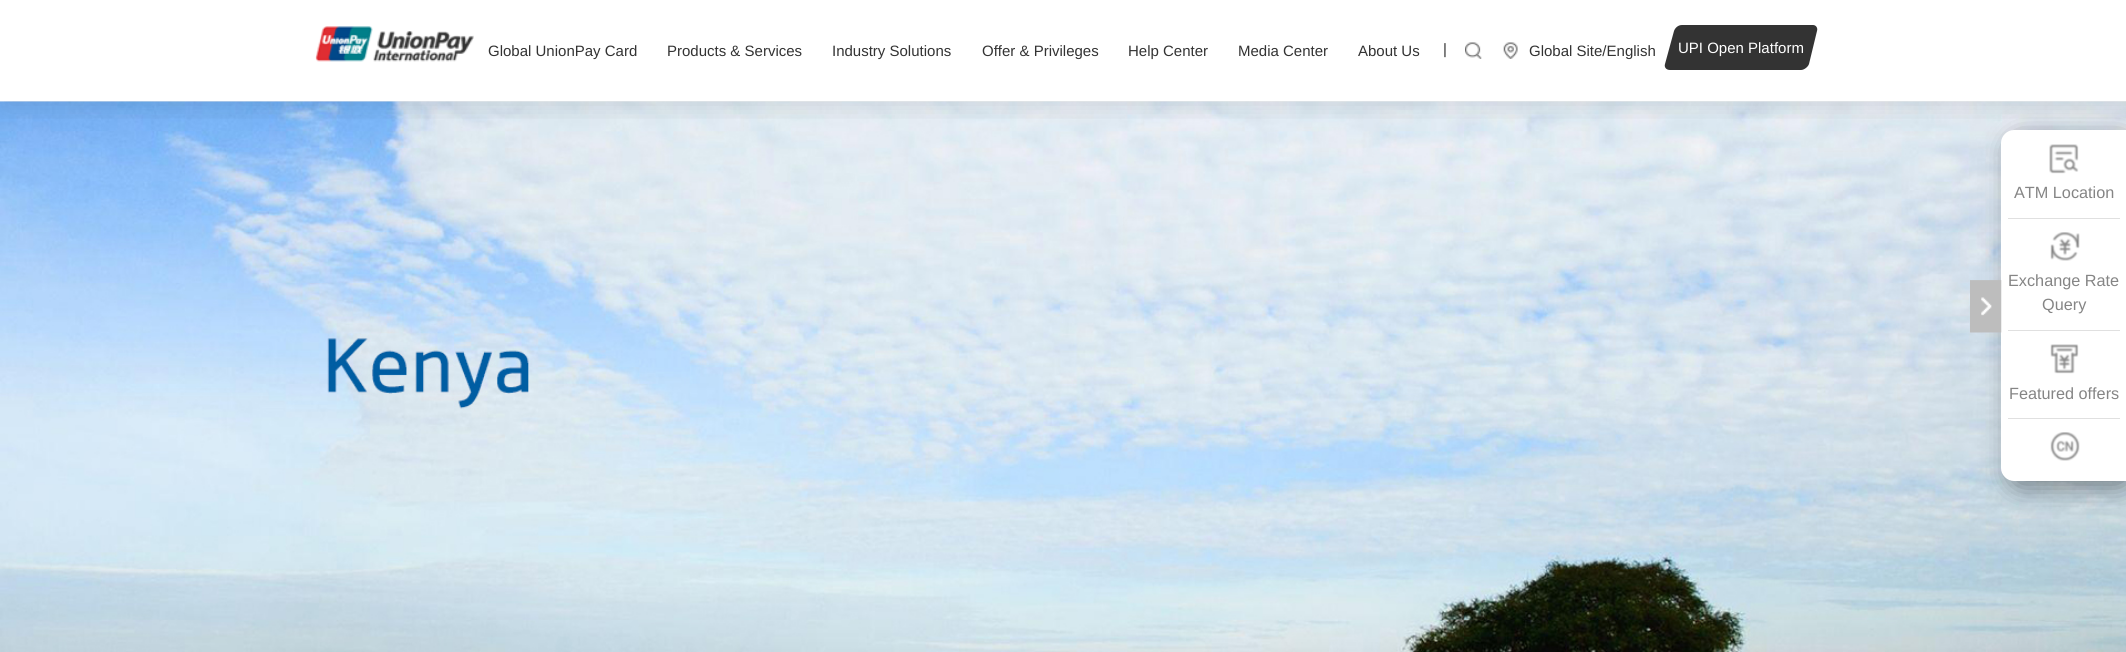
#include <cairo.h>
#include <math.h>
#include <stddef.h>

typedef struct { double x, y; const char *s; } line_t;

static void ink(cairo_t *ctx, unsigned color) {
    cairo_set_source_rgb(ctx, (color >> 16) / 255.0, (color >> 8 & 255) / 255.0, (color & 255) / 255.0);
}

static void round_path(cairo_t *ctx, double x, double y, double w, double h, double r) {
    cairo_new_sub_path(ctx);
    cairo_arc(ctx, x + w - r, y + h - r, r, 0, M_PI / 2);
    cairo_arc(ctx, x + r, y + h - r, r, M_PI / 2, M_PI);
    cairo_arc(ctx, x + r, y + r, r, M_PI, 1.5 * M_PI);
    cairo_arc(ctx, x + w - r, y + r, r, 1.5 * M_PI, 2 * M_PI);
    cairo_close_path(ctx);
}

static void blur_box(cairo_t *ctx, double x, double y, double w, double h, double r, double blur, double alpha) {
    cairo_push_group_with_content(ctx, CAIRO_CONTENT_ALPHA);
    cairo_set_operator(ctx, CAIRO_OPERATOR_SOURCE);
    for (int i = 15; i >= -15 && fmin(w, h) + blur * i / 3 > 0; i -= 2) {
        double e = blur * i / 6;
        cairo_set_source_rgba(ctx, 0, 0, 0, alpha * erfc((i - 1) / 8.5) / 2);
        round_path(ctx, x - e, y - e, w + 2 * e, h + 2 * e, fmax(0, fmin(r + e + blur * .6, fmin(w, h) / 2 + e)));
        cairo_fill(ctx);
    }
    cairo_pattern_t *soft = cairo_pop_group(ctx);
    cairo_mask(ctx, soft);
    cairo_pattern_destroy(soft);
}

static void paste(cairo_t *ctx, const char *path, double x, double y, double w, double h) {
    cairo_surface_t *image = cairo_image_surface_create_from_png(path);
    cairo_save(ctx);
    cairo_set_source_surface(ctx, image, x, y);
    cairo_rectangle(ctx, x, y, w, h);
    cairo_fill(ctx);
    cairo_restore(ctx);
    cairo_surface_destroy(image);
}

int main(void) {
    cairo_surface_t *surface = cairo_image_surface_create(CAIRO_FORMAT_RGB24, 2126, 652);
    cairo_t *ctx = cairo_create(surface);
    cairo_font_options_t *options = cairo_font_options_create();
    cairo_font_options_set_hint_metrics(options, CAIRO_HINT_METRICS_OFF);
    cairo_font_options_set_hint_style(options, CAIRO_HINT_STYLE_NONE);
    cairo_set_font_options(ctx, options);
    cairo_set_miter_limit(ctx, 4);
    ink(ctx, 0xFFFFFF);
    cairo_paint(ctx);
    paste(ctx, "media/4.png", 0, 101, 2126, 551);
    cairo_save(ctx);
    cairo_rectangle(ctx, 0, 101, 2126, 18);
    cairo_clip(ctx);
    ink(ctx, 0x000000);
    blur_box(ctx, 6, 6, 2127, 102, 0, 12.5, 0.1);
    cairo_restore(ctx);
    paste(ctx, "media/1.png", 315, 26, 159, 36);
    cairo_select_font_face(ctx, "Liberation Sans", CAIRO_FONT_SLANT_NORMAL, CAIRO_FONT_WEIGHT_NORMAL);
    cairo_set_font_size(ctx, 15);
    ink(ctx, 0x333333);
    {
        static const line_t items[] = {
            {488, 56, "Global UnionPay Card"},
            {667, 56, "Products & Services"},
            {832, 56, "Industry Solutions"},
            {982, 56, "Offer & Privileges"},
            {1128, 56, "Help Center"},
            {1238, 56, "Media Center"},
            {1358, 56, "About Us"},
        };
        for (size_t i = 0; i < sizeof items / sizeof *items; i++) {
            cairo_move_to(ctx, items[i].x, items[i].y);
            cairo_show_text(ctx, items[i].s);
        }
    }
    paste(ctx, "media/2.png", 1465, 42, 17, 17);
    cairo_move_to(ctx, 1443, 54);
    cairo_show_text(ctx, "|");
    paste(ctx, "media/3.png", 1503, 42, 15, 17);
    cairo_move_to(ctx, 1529, 56);
    cairo_show_text(ctx, "Global Site/English");
    cairo_new_path(ctx);
    cairo_move_to(ctx, 1682, 25);
    cairo_line_to(ctx, 1813, 25);
    cairo_curve_to(ctx, 1816, 25, 1818, 28, 1817, 31);
    cairo_line_to(ctx, 1809, 64);
    cairo_curve_to(ctx, 1808, 67, 1804, 70, 1801, 70);
    cairo_line_to(ctx, 1670, 70);
    cairo_curve_to(ctx, 1666, 70, 1664, 67, 1665, 64);
    cairo_line_to(ctx, 1674, 31);
    cairo_curve_to(ctx, 1675, 28, 1678, 25, 1682, 25);
    cairo_close_path(ctx);
    cairo_fill(ctx);
    ink(ctx, 0xFFFFFF);
    cairo_move_to(ctx, 1678, 53);
    cairo_show_text(ctx, "UPI Open Platform");
    ink(ctx, 0x000000);
    blur_box(ctx, 2008, 136, 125, 352, 13, 12.5, 0.4);
    ink(ctx, 0xFFFFFF);
    cairo_new_path(ctx);
    cairo_move_to(ctx, 2014, 130);
    cairo_line_to(ctx, 2126, 130);
    cairo_line_to(ctx, 2126, 481);
    cairo_line_to(ctx, 2014, 481);
    cairo_curve_to(ctx, 2007, 481, 2001, 475, 2001, 468);
    cairo_line_to(ctx, 2001, 143);
    cairo_curve_to(ctx, 2001, 136, 2007, 130, 2014, 130);
    cairo_close_path(ctx);
    cairo_fill(ctx);
    paste(ctx, "media/5.png", 1970, 280, 32, 53);
    ink(ctx, 0xE0E0E0);
    cairo_rectangle(ctx, 2008, 218, 112, 1);
    cairo_fill(ctx);
    paste(ctx, "media/6.png", 2049, 144, 30, 30);
    cairo_set_font_size(ctx, 16.25);
    ink(ctx, 0x858585);
    cairo_move_to(ctx, 2014, 198);
    cairo_show_text(ctx, "ATM Location");
    ink(ctx, 0xE0E0E0);
    cairo_rectangle(ctx, 2008, 330, 112, 1);
    cairo_fill(ctx);
    paste(ctx, "media/7.png", 2050, 232, 30, 29);
    ink(ctx, 0x858585);
    cairo_move_to(ctx, 2008, 286);
    cairo_show_text(ctx, "Exchange Rate");
    cairo_move_to(ctx, 2042, 310);
    cairo_show_text(ctx, "Query");
    ink(ctx, 0xE0E0E0);
    cairo_rectangle(ctx, 2008, 418, 112, 1);
    cairo_fill(ctx);
    paste(ctx, "media/8.png", 2050, 344, 29, 30);
    ink(ctx, 0x858585);
    cairo_move_to(ctx, 2009, 399);
    cairo_show_text(ctx, "Featured offers");
    paste(ctx, "media/9.png", 2050, 432, 30, 29);
    cairo_surface_write_to_png(surface, "image.png");
    cairo_font_options_destroy(options);
    cairo_destroy(ctx);
    cairo_surface_destroy(surface);
    return 0;
}
